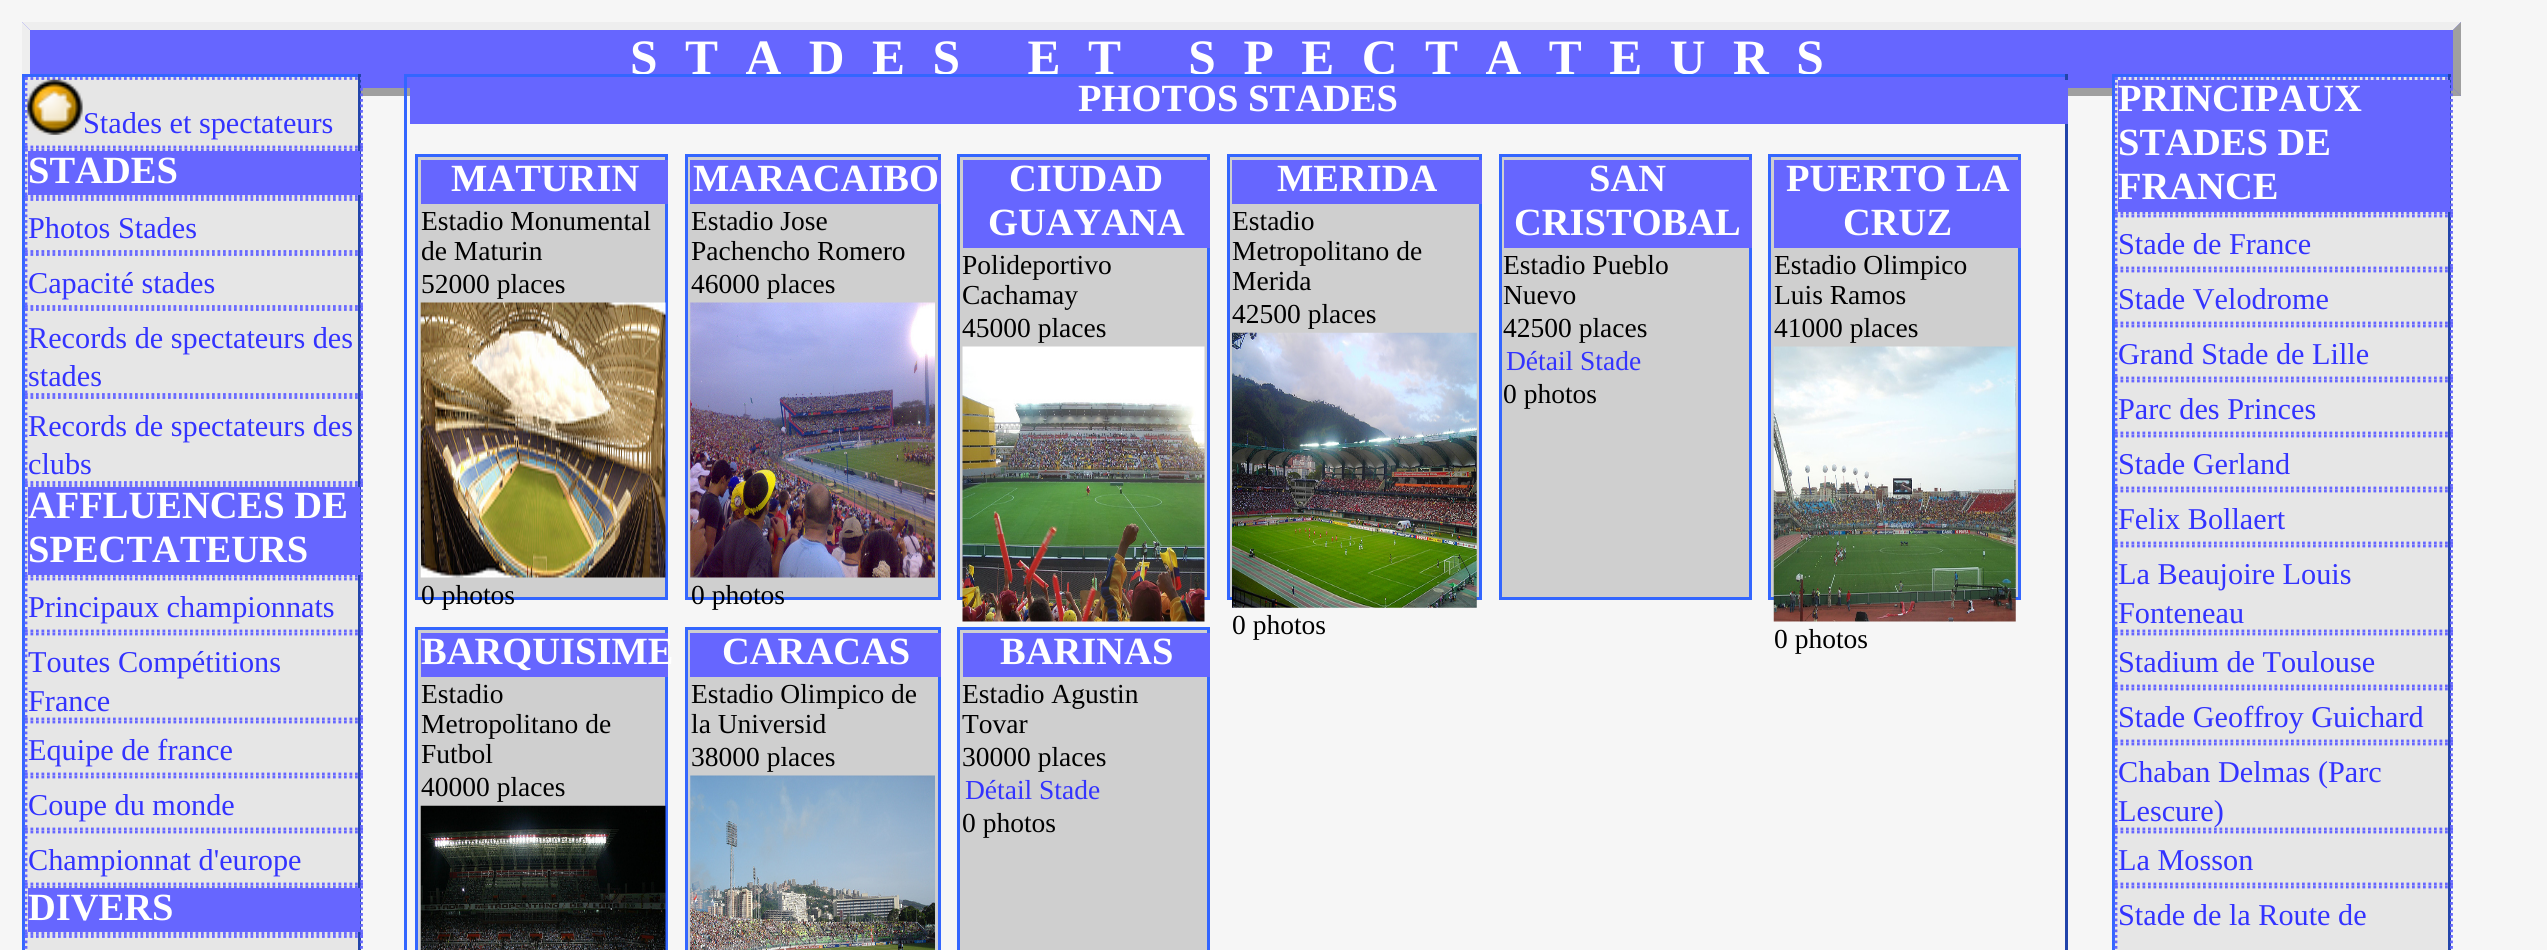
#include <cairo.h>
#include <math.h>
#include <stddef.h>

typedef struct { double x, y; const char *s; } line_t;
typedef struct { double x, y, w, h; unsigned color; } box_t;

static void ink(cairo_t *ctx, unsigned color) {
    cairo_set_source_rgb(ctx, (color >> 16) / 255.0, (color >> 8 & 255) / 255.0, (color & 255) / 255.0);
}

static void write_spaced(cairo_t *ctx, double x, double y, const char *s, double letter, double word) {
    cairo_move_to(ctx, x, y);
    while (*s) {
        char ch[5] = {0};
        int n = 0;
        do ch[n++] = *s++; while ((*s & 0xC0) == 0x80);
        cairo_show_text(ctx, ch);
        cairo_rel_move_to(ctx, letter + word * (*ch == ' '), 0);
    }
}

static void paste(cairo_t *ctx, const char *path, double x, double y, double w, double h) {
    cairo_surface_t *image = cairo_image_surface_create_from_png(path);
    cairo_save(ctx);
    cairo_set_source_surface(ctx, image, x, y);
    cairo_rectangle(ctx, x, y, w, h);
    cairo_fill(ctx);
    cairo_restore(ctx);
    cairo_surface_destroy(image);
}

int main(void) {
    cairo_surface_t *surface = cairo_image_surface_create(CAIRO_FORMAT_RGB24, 2547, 950);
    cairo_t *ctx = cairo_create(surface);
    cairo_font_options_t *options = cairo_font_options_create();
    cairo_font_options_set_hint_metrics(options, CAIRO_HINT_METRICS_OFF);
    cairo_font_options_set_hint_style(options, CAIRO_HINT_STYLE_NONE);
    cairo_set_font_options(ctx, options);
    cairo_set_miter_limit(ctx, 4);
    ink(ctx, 0xF6F6F6);
    cairo_paint(ctx);
    ink(ctx, 0x6666FF);
    cairo_rectangle(ctx, 22, 22, 2439, 74);
    cairo_fill(ctx);
    ink(ctx, 0xEEEEEE);
    cairo_new_path(ctx);
    cairo_move_to(ctx, 22, 22);
    cairo_line_to(ctx, 2461, 22);
    cairo_line_to(ctx, 2453, 30);
    cairo_line_to(ctx, 30, 30);
    cairo_close_path(ctx);
    cairo_fill(ctx);
    ink(ctx, 0x9F9F9F);
    cairo_new_path(ctx);
    cairo_move_to(ctx, 2461, 22);
    cairo_line_to(ctx, 2461, 96);
    cairo_line_to(ctx, 2453, 88);
    cairo_line_to(ctx, 2453, 30);
    cairo_close_path(ctx);
    cairo_fill(ctx);
    cairo_new_path(ctx);
    cairo_move_to(ctx, 2461, 96);
    cairo_line_to(ctx, 22, 96);
    cairo_line_to(ctx, 30, 88);
    cairo_line_to(ctx, 2453, 88);
    cairo_close_path(ctx);
    cairo_fill(ctx);
    ink(ctx, 0xEEEEEE);
    cairo_new_path(ctx);
    cairo_move_to(ctx, 22, 96);
    cairo_line_to(ctx, 22, 22);
    cairo_line_to(ctx, 30, 30);
    cairo_line_to(ctx, 30, 88);
    cairo_close_path(ctx);
    cairo_fill(ctx);
    cairo_select_font_face(ctx, "Liberation Serif", CAIRO_FONT_SLANT_NORMAL, CAIRO_FONT_WEIGHT_BOLD);
    cairo_set_font_size(ctx, 49.5);
    ink(ctx, 0xFFFFFF);
    write_spaced(ctx, 630, 74, "STADES ET SPECTATEURS", 27.5, 0);
    {
        static const box_t items[] = {
            {25, 77, 333, 873, 0xE6E6E6},
            {22, 74, 338, 3, 0x3366FF},
            {358, 74, 3, 876, 0x2244AA},
            {22, 74, 3, 876, 0x3366FF},
        };
        for (size_t i = 0; i < sizeof items / sizeof *items; i++) {
            ink(ctx, items[i].color);
            cairo_rectangle(ctx, items[i].x, items[i].y, items[i].w, items[i].h);
            cairo_fill(ctx);
        }
    }
    cairo_new_path(ctx);
    cairo_move_to(ctx, 25, 78.5);
    cairo_line_to(ctx, 363, 78.5);
    ink(ctx, 0x6666FF);
    cairo_set_line_width(ctx, 2.8);
    cairo_set_dash(ctx, (double[]){2.75, 2.75}, 2, 0);
    cairo_stroke(ctx);
    cairo_new_path(ctx);
    cairo_move_to(ctx, 361.5, 77);
    cairo_line_to(ctx, 361.5, 148.5);
    cairo_stroke(ctx);
    cairo_new_path(ctx);
    cairo_move_to(ctx, 25, 147);
    cairo_line_to(ctx, 363, 147);
    cairo_stroke(ctx);
    cairo_new_path(ctx);
    cairo_move_to(ctx, 26, 77);
    cairo_line_to(ctx, 26, 148.5);
    cairo_stroke(ctx);
    paste(ctx, "media/1.png", 27, 79, 56, 56);
    cairo_select_font_face(ctx, "Liberation Serif", CAIRO_FONT_SLANT_NORMAL, CAIRO_FONT_WEIGHT_NORMAL);
    cairo_set_font_size(ctx, 30.25);
    ink(ctx, 0x3333FF);
    cairo_move_to(ctx, 83, 133);
    cairo_show_text(ctx, "Stades et spectateurs");
    cairo_new_path(ctx);
    cairo_move_to(ctx, 25, 150);
    cairo_line_to(ctx, 363, 150);
    ink(ctx, 0x6666FF);
    cairo_stroke(ctx);
    cairo_new_path(ctx);
    cairo_move_to(ctx, 361.5, 148.5);
    cairo_line_to(ctx, 361.5, 198);
    cairo_stroke(ctx);
    cairo_new_path(ctx);
    cairo_move_to(ctx, 25, 196.5);
    cairo_line_to(ctx, 363, 196.5);
    cairo_stroke(ctx);
    cairo_new_path(ctx);
    cairo_move_to(ctx, 26, 148.5);
    cairo_line_to(ctx, 26, 198);
    cairo_stroke(ctx);
    cairo_rectangle(ctx, 28, 151, 332, 44);
    cairo_fill(ctx);
    cairo_select_font_face(ctx, "Liberation Serif", CAIRO_FONT_SLANT_NORMAL, CAIRO_FONT_WEIGHT_BOLD);
    cairo_set_font_size(ctx, 38.5);
    ink(ctx, 0xFFFFFF);
    cairo_move_to(ctx, 28, 183);
    cairo_show_text(ctx, "STADES");
    cairo_new_path(ctx);
    cairo_move_to(ctx, 25, 199.5);
    cairo_line_to(ctx, 363, 199.5);
    ink(ctx, 0x6666FF);
    cairo_stroke(ctx);
    cairo_new_path(ctx);
    cairo_move_to(ctx, 361.5, 198);
    cairo_line_to(ctx, 361.5, 253);
    cairo_stroke(ctx);
    cairo_new_path(ctx);
    cairo_move_to(ctx, 25, 251.5);
    cairo_line_to(ctx, 363, 251.5);
    cairo_stroke(ctx);
    cairo_new_path(ctx);
    cairo_move_to(ctx, 26, 198);
    cairo_line_to(ctx, 26, 253);
    cairo_stroke(ctx);
    cairo_select_font_face(ctx, "Liberation Serif", CAIRO_FONT_SLANT_NORMAL, CAIRO_FONT_WEIGHT_NORMAL);
    cairo_set_font_size(ctx, 30.25);
    ink(ctx, 0x3333FF);
    cairo_move_to(ctx, 28, 238);
    cairo_show_text(ctx, "Photos Stades");
    cairo_new_path(ctx);
    cairo_move_to(ctx, 25, 254.5);
    cairo_line_to(ctx, 363, 254.5);
    ink(ctx, 0x6666FF);
    cairo_stroke(ctx);
    cairo_new_path(ctx);
    cairo_move_to(ctx, 361.5, 253);
    cairo_line_to(ctx, 361.5, 308);
    cairo_stroke(ctx);
    cairo_new_path(ctx);
    cairo_move_to(ctx, 25, 306.5);
    cairo_line_to(ctx, 363, 306.5);
    cairo_stroke(ctx);
    cairo_new_path(ctx);
    cairo_move_to(ctx, 26, 253);
    cairo_line_to(ctx, 26, 308);
    cairo_stroke(ctx);
    ink(ctx, 0x3333FF);
    cairo_move_to(ctx, 28, 293);
    cairo_show_text(ctx, "Capacité stades");
    cairo_new_path(ctx);
    cairo_move_to(ctx, 25, 309.5);
    cairo_line_to(ctx, 363, 309.5);
    ink(ctx, 0x6666FF);
    cairo_stroke(ctx);
    cairo_new_path(ctx);
    cairo_move_to(ctx, 361.5, 308);
    cairo_line_to(ctx, 361.5, 396);
    cairo_stroke(ctx);
    cairo_new_path(ctx);
    cairo_move_to(ctx, 25, 394.5);
    cairo_line_to(ctx, 363, 394.5);
    cairo_stroke(ctx);
    cairo_new_path(ctx);
    cairo_move_to(ctx, 26, 308);
    cairo_line_to(ctx, 26, 396);
    cairo_stroke(ctx);
    ink(ctx, 0x3333FF);
    cairo_move_to(ctx, 28, 348);
    cairo_show_text(ctx, "Records de spectateurs des");
    cairo_move_to(ctx, 28, 386);
    cairo_show_text(ctx, "stades");
    cairo_new_path(ctx);
    cairo_move_to(ctx, 25, 397.5);
    cairo_line_to(ctx, 363, 397.5);
    ink(ctx, 0x6666FF);
    cairo_stroke(ctx);
    cairo_new_path(ctx);
    cairo_move_to(ctx, 361.5, 396);
    cairo_line_to(ctx, 361.5, 484);
    cairo_stroke(ctx);
    cairo_new_path(ctx);
    cairo_move_to(ctx, 25, 482.5);
    cairo_line_to(ctx, 363, 482.5);
    cairo_stroke(ctx);
    cairo_new_path(ctx);
    cairo_move_to(ctx, 26, 396);
    cairo_line_to(ctx, 26, 484);
    cairo_stroke(ctx);
    ink(ctx, 0x3333FF);
    cairo_move_to(ctx, 28, 436);
    cairo_show_text(ctx, "Records de spectateurs des");
    cairo_move_to(ctx, 28, 474);
    cairo_show_text(ctx, "clubs");
    cairo_new_path(ctx);
    cairo_move_to(ctx, 25, 485.5);
    cairo_line_to(ctx, 363, 485.5);
    ink(ctx, 0x6666FF);
    cairo_stroke(ctx);
    cairo_new_path(ctx);
    cairo_move_to(ctx, 361.5, 484);
    cairo_line_to(ctx, 361.5, 577.5);
    cairo_stroke(ctx);
    cairo_new_path(ctx);
    cairo_move_to(ctx, 25, 576);
    cairo_line_to(ctx, 363, 576);
    cairo_stroke(ctx);
    cairo_new_path(ctx);
    cairo_move_to(ctx, 26, 484);
    cairo_line_to(ctx, 26, 577.5);
    cairo_stroke(ctx);
    cairo_rectangle(ctx, 28, 487, 332, 88);
    cairo_fill(ctx);
    cairo_select_font_face(ctx, "Liberation Serif", CAIRO_FONT_SLANT_NORMAL, CAIRO_FONT_WEIGHT_BOLD);
    cairo_set_font_size(ctx, 38.5);
    ink(ctx, 0xFFFFFF);
    cairo_move_to(ctx, 28, 518);
    cairo_show_text(ctx, "AFFLUENCES DE");
    cairo_move_to(ctx, 28, 562);
    cairo_show_text(ctx, "SPECTATEURS");
    cairo_new_path(ctx);
    cairo_move_to(ctx, 25, 579);
    cairo_line_to(ctx, 363, 579);
    ink(ctx, 0x6666FF);
    cairo_stroke(ctx);
    cairo_new_path(ctx);
    cairo_move_to(ctx, 361.5, 577.5);
    cairo_line_to(ctx, 361.5, 632.5);
    cairo_stroke(ctx);
    cairo_new_path(ctx);
    cairo_move_to(ctx, 25, 631);
    cairo_line_to(ctx, 363, 631);
    cairo_stroke(ctx);
    cairo_new_path(ctx);
    cairo_move_to(ctx, 26, 577.5);
    cairo_line_to(ctx, 26, 632.5);
    cairo_stroke(ctx);
    cairo_select_font_face(ctx, "Liberation Serif", CAIRO_FONT_SLANT_NORMAL, CAIRO_FONT_WEIGHT_NORMAL);
    cairo_set_font_size(ctx, 30.25);
    ink(ctx, 0x3333FF);
    cairo_move_to(ctx, 28, 617);
    cairo_show_text(ctx, "Principaux championnats");
    cairo_new_path(ctx);
    cairo_move_to(ctx, 25, 634);
    cairo_line_to(ctx, 363, 634);
    ink(ctx, 0x6666FF);
    cairo_stroke(ctx);
    cairo_new_path(ctx);
    cairo_move_to(ctx, 361.5, 632.5);
    cairo_line_to(ctx, 361.5, 720.5);
    cairo_stroke(ctx);
    cairo_new_path(ctx);
    cairo_move_to(ctx, 25, 719);
    cairo_line_to(ctx, 363, 719);
    cairo_stroke(ctx);
    cairo_new_path(ctx);
    cairo_move_to(ctx, 26, 632.5);
    cairo_line_to(ctx, 26, 720.5);
    cairo_stroke(ctx);
    ink(ctx, 0x3333FF);
    cairo_move_to(ctx, 28, 672);
    cairo_show_text(ctx, "Toutes Compétitions");
    cairo_move_to(ctx, 28, 711);
    cairo_show_text(ctx, "France");
    cairo_new_path(ctx);
    cairo_move_to(ctx, 25, 722);
    cairo_line_to(ctx, 363, 722);
    ink(ctx, 0x6666FF);
    cairo_stroke(ctx);
    cairo_new_path(ctx);
    cairo_move_to(ctx, 361.5, 720.5);
    cairo_line_to(ctx, 361.5, 775.5);
    cairo_stroke(ctx);
    cairo_new_path(ctx);
    cairo_move_to(ctx, 25, 774);
    cairo_line_to(ctx, 363, 774);
    cairo_stroke(ctx);
    cairo_new_path(ctx);
    cairo_move_to(ctx, 26, 720.5);
    cairo_line_to(ctx, 26, 775.5);
    cairo_stroke(ctx);
    ink(ctx, 0x3333FF);
    cairo_move_to(ctx, 28, 760);
    cairo_show_text(ctx, "Equipe de france");
    cairo_new_path(ctx);
    cairo_move_to(ctx, 25, 777);
    cairo_line_to(ctx, 363, 777);
    ink(ctx, 0x6666FF);
    cairo_stroke(ctx);
    cairo_new_path(ctx);
    cairo_move_to(ctx, 361.5, 775.5);
    cairo_line_to(ctx, 361.5, 830.5);
    cairo_stroke(ctx);
    cairo_new_path(ctx);
    cairo_move_to(ctx, 25, 829);
    cairo_line_to(ctx, 363, 829);
    cairo_stroke(ctx);
    cairo_new_path(ctx);
    cairo_move_to(ctx, 26, 775.5);
    cairo_line_to(ctx, 26, 830.5);
    cairo_stroke(ctx);
    ink(ctx, 0x3333FF);
    cairo_move_to(ctx, 28, 815);
    cairo_show_text(ctx, "Coupe du monde");
    cairo_new_path(ctx);
    cairo_move_to(ctx, 25, 832);
    cairo_line_to(ctx, 363, 832);
    ink(ctx, 0x6666FF);
    cairo_stroke(ctx);
    cairo_new_path(ctx);
    cairo_move_to(ctx, 361.5, 830.5);
    cairo_line_to(ctx, 361.5, 885.5);
    cairo_stroke(ctx);
    cairo_new_path(ctx);
    cairo_move_to(ctx, 25, 884);
    cairo_line_to(ctx, 363, 884);
    cairo_stroke(ctx);
    cairo_new_path(ctx);
    cairo_move_to(ctx, 26, 830.5);
    cairo_line_to(ctx, 26, 885.5);
    cairo_stroke(ctx);
    ink(ctx, 0x3333FF);
    cairo_move_to(ctx, 28, 870);
    cairo_show_text(ctx, "Championnat d'europe");
    cairo_new_path(ctx);
    cairo_move_to(ctx, 25, 887);
    cairo_line_to(ctx, 363, 887);
    ink(ctx, 0x6666FF);
    cairo_stroke(ctx);
    cairo_new_path(ctx);
    cairo_move_to(ctx, 361.5, 885.5);
    cairo_line_to(ctx, 361.5, 935);
    cairo_stroke(ctx);
    cairo_new_path(ctx);
    cairo_move_to(ctx, 25, 933.5);
    cairo_line_to(ctx, 363, 933.5);
    cairo_stroke(ctx);
    cairo_new_path(ctx);
    cairo_move_to(ctx, 26, 885.5);
    cairo_line_to(ctx, 26, 935);
    cairo_stroke(ctx);
    cairo_rectangle(ctx, 28, 888, 332, 44);
    cairo_fill(ctx);
    cairo_select_font_face(ctx, "Liberation Serif", CAIRO_FONT_SLANT_NORMAL, CAIRO_FONT_WEIGHT_BOLD);
    cairo_set_font_size(ctx, 38.5);
    ink(ctx, 0xFFFFFF);
    cairo_move_to(ctx, 28, 920);
    cairo_show_text(ctx, "DIVERS");
    cairo_new_path(ctx);
    cairo_move_to(ctx, 25, 936.5);
    cairo_line_to(ctx, 363, 936.5);
    ink(ctx, 0x6666FF);
    cairo_stroke(ctx);
    cairo_new_path(ctx);
    cairo_move_to(ctx, 361.5, 935);
    cairo_line_to(ctx, 361.5, 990);
    cairo_stroke(ctx);
    cairo_new_path(ctx);
    cairo_move_to(ctx, 26, 935);
    cairo_line_to(ctx, 26, 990);
    cairo_stroke(ctx);
    {
        static const box_t items[] = {
            {404, 74, 1664, 3, 0x3366FF},
            {2065, 74, 3, 876, 0x2244AA},
            {404, 74, 3, 876, 0x3366FF},
            {410, 80, 1658, 44, 0x6666FF},
        };
        for (size_t i = 0; i < sizeof items / sizeof *items; i++) {
            ink(ctx, items[i].color);
            cairo_rectangle(ctx, items[i].x, items[i].y, items[i].w, items[i].h);
            cairo_fill(ctx);
        }
    }
    ink(ctx, 0xFFFFFF);
    cairo_move_to(ctx, 1078, 111);
    cairo_show_text(ctx, "PHOTOS STADES");
    ink(ctx, 0xCFCFCF);
    cairo_rectangle(ctx, 416.5, 155.5, 250, 443);
    cairo_fill_preserve(ctx);
    ink(ctx, 0x3366FF);
    cairo_set_line_width(ctx, 3);
    cairo_set_dash(ctx, NULL, 0, 0);
    cairo_stroke(ctx);
    ink(ctx, 0x6666FF);
    cairo_rectangle(ctx, 421, 160, 247, 44);
    cairo_fill(ctx);
    ink(ctx, 0xFFFFFF);
    cairo_move_to(ctx, 451, 191);
    cairo_show_text(ctx, "MATURIN");
    cairo_select_font_face(ctx, "Liberation Serif", CAIRO_FONT_SLANT_NORMAL, CAIRO_FONT_WEIGHT_NORMAL);
    cairo_set_font_size(ctx, 27.5);
    ink(ctx, 0x000000);
    {
        static const line_t items[] = {
            {421, 230, "Estadio Monumental"},
            {421, 260, "de Maturin"},
            {421, 293, "52000 places"},
        };
        for (size_t i = 0; i < sizeof items / sizeof *items; i++) {
            cairo_move_to(ctx, items[i].x, items[i].y);
            cairo_show_text(ctx, items[i].s);
        }
    }
    paste(ctx, "media/2.png", 420, 302, 246, 276);
    cairo_move_to(ctx, 421, 604);
    cairo_show_text(ctx, "0 photos");
    ink(ctx, 0xCFCFCF);
    cairo_rectangle(ctx, 686.5, 155.5, 253, 443);
    cairo_fill_preserve(ctx);
    ink(ctx, 0x3366FF);
    cairo_stroke(ctx);
    ink(ctx, 0x6666FF);
    cairo_rectangle(ctx, 690, 160, 251, 44);
    cairo_fill(ctx);
    cairo_select_font_face(ctx, "Liberation Serif", CAIRO_FONT_SLANT_NORMAL, CAIRO_FONT_WEIGHT_BOLD);
    cairo_set_font_size(ctx, 38.5);
    ink(ctx, 0xFFFFFF);
    cairo_move_to(ctx, 693, 191);
    cairo_show_text(ctx, "MARACAIBO");
    cairo_select_font_face(ctx, "Liberation Serif", CAIRO_FONT_SLANT_NORMAL, CAIRO_FONT_WEIGHT_NORMAL);
    cairo_set_font_size(ctx, 27.5);
    ink(ctx, 0x000000);
    {
        static const line_t items[] = {
            {691, 230, "Estadio Jose"},
            {691, 260, "Pachencho Romero"},
            {691, 293, "46000 places"},
        };
        for (size_t i = 0; i < sizeof items / sizeof *items; i++) {
            cairo_move_to(ctx, items[i].x, items[i].y);
            cairo_show_text(ctx, items[i].s);
        }
    }
    paste(ctx, "media/3.png", 690, 302, 245, 276);
    cairo_move_to(ctx, 691, 604);
    cairo_show_text(ctx, "0 photos");
    ink(ctx, 0xCFCFCF);
    cairo_rectangle(ctx, 958.5, 155.5, 250, 443);
    cairo_fill_preserve(ctx);
    ink(ctx, 0x3366FF);
    cairo_stroke(ctx);
    ink(ctx, 0x6666FF);
    cairo_rectangle(ctx, 963, 160, 247, 88);
    cairo_fill(ctx);
    cairo_select_font_face(ctx, "Liberation Serif", CAIRO_FONT_SLANT_NORMAL, CAIRO_FONT_WEIGHT_BOLD);
    cairo_set_font_size(ctx, 38.5);
    ink(ctx, 0xFFFFFF);
    cairo_move_to(ctx, 1009, 191);
    cairo_show_text(ctx, "CIUDAD");
    cairo_move_to(ctx, 988, 235);
    cairo_show_text(ctx, "GUAYANA");
    cairo_select_font_face(ctx, "Liberation Serif", CAIRO_FONT_SLANT_NORMAL, CAIRO_FONT_WEIGHT_NORMAL);
    cairo_set_font_size(ctx, 27.5);
    ink(ctx, 0x000000);
    {
        static const line_t items[] = {
            {962, 274, "Polideportivo"},
            {962, 304, "Cachamay"},
            {962, 337, "45000 places"},
        };
        for (size_t i = 0; i < sizeof items / sizeof *items; i++) {
            cairo_move_to(ctx, items[i].x, items[i].y);
            cairo_show_text(ctx, items[i].s);
        }
    }
    paste(ctx, "media/4.png", 962, 346, 243, 276);
    ink(ctx, 0xCFCFCF);
    cairo_rectangle(ctx, 1228.5, 155.5, 252, 443);
    cairo_fill_preserve(ctx);
    ink(ctx, 0x3366FF);
    cairo_stroke(ctx);
    ink(ctx, 0x6666FF);
    cairo_rectangle(ctx, 1232, 160, 250, 44);
    cairo_fill(ctx);
    cairo_select_font_face(ctx, "Liberation Serif", CAIRO_FONT_SLANT_NORMAL, CAIRO_FONT_WEIGHT_BOLD);
    cairo_set_font_size(ctx, 38.5);
    ink(ctx, 0xFFFFFF);
    cairo_move_to(ctx, 1277, 191);
    cairo_show_text(ctx, "MERIDA");
    cairo_select_font_face(ctx, "Liberation Serif", CAIRO_FONT_SLANT_NORMAL, CAIRO_FONT_WEIGHT_NORMAL);
    cairo_set_font_size(ctx, 27.5);
    ink(ctx, 0x000000);
    {
        static const line_t items[] = {
            {1232, 230, "Estadio"},
            {1232, 260, "Metropolitano de"},
            {1232, 290, "Merida"},
            {1232, 323, "42500 places"},
        };
        for (size_t i = 0; i < sizeof items / sizeof *items; i++) {
            cairo_move_to(ctx, items[i].x, items[i].y);
            cairo_show_text(ctx, items[i].s);
        }
    }
    paste(ctx, "media/5.png", 1232, 332, 245, 276);
    cairo_move_to(ctx, 1232, 634);
    cairo_show_text(ctx, "0 photos");
    ink(ctx, 0xCFCFCF);
    cairo_rectangle(ctx, 1500.5, 155.5, 250, 443);
    cairo_fill_preserve(ctx);
    ink(ctx, 0x3366FF);
    cairo_stroke(ctx);
    ink(ctx, 0x6666FF);
    cairo_rectangle(ctx, 1504, 160, 248, 88);
    cairo_fill(ctx);
    cairo_select_font_face(ctx, "Liberation Serif", CAIRO_FONT_SLANT_NORMAL, CAIRO_FONT_WEIGHT_BOLD);
    cairo_set_font_size(ctx, 38.5);
    ink(ctx, 0xFFFFFF);
    cairo_move_to(ctx, 1589, 191);
    cairo_show_text(ctx, "SAN");
    cairo_move_to(ctx, 1514, 235);
    cairo_show_text(ctx, "CRISTOBAL");
    cairo_select_font_face(ctx, "Liberation Serif", CAIRO_FONT_SLANT_NORMAL, CAIRO_FONT_WEIGHT_NORMAL);
    cairo_set_font_size(ctx, 27.5);
    ink(ctx, 0x000000);
    {
        static const line_t items[] = {
            {1503, 274, "Estadio Pueblo"},
            {1503, 304, "Nuevo"},
            {1503, 337, "42500 places"},
        };
        for (size_t i = 0; i < sizeof items / sizeof *items; i++) {
            cairo_move_to(ctx, items[i].x, items[i].y);
            cairo_show_text(ctx, items[i].s);
        }
    }
    ink(ctx, 0x3333FF);
    cairo_move_to(ctx, 1506, 370);
    cairo_show_text(ctx, "Détail Stade");
    ink(ctx, 0x000000);
    cairo_move_to(ctx, 1503, 403);
    cairo_show_text(ctx, "0 photos");
    ink(ctx, 0xCFCFCF);
    cairo_rectangle(ctx, 1769.5, 155.5, 250, 443);
    cairo_fill_preserve(ctx);
    ink(ctx, 0x3366FF);
    cairo_stroke(ctx);
    ink(ctx, 0x6666FF);
    cairo_rectangle(ctx, 1774, 160, 247, 88);
    cairo_fill(ctx);
    cairo_select_font_face(ctx, "Liberation Serif", CAIRO_FONT_SLANT_NORMAL, CAIRO_FONT_WEIGHT_BOLD);
    cairo_set_font_size(ctx, 38.5);
    ink(ctx, 0xFFFFFF);
    cairo_move_to(ctx, 1786, 191);
    cairo_show_text(ctx, "PUERTO LA");
    cairo_move_to(ctx, 1843, 235);
    cairo_show_text(ctx, "CRUZ");
    cairo_select_font_face(ctx, "Liberation Serif", CAIRO_FONT_SLANT_NORMAL, CAIRO_FONT_WEIGHT_NORMAL);
    cairo_set_font_size(ctx, 27.5);
    ink(ctx, 0x000000);
    {
        static const line_t items[] = {
            {1774, 274, "Estadio Olimpico"},
            {1774, 304, "Luis Ramos"},
            {1774, 337, "41000 places"},
        };
        for (size_t i = 0; i < sizeof items / sizeof *items; i++) {
            cairo_move_to(ctx, items[i].x, items[i].y);
            cairo_show_text(ctx, items[i].s);
        }
    }
    paste(ctx, "media/6.png", 1773, 346, 243, 276);
    cairo_move_to(ctx, 1774, 648);
    cairo_show_text(ctx, "0 photos");
    ink(ctx, 0xCFCFCF);
    cairo_rectangle(ctx, 416.5, 628.5, 250, 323);
    cairo_fill_preserve(ctx);
    ink(ctx, 0x3366FF);
    cairo_stroke(ctx);
    ink(ctx, 0x6666FF);
    cairo_rectangle(ctx, 421, 633, 247, 44);
    cairo_fill(ctx);
    cairo_select_font_face(ctx, "Liberation Serif", CAIRO_FONT_SLANT_NORMAL, CAIRO_FONT_WEIGHT_BOLD);
    cairo_set_font_size(ctx, 38.5);
    ink(ctx, 0xFFFFFF);
    cairo_move_to(ctx, 421, 664);
    cairo_show_text(ctx, "BARQUISIME");
    cairo_select_font_face(ctx, "Liberation Serif", CAIRO_FONT_SLANT_NORMAL, CAIRO_FONT_WEIGHT_NORMAL);
    cairo_set_font_size(ctx, 27.5);
    ink(ctx, 0x000000);
    {
        static const line_t items[] = {
            {421, 703, "Estadio"},
            {421, 733, "Metropolitano de"},
            {421, 763, "Futbol"},
            {421, 796, "40000 places"},
        };
        for (size_t i = 0; i < sizeof items / sizeof *items; i++) {
            cairo_move_to(ctx, items[i].x, items[i].y);
            cairo_show_text(ctx, items[i].s);
        }
    }
    paste(ctx, "media/7.png", 420, 805, 246, 145);
    ink(ctx, 0xCFCFCF);
    cairo_rectangle(ctx, 686.5, 628.5, 253, 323);
    cairo_fill_preserve(ctx);
    ink(ctx, 0x3366FF);
    cairo_stroke(ctx);
    ink(ctx, 0x6666FF);
    cairo_rectangle(ctx, 690, 633, 251, 44);
    cairo_fill(ctx);
    cairo_select_font_face(ctx, "Liberation Serif", CAIRO_FONT_SLANT_NORMAL, CAIRO_FONT_WEIGHT_BOLD);
    cairo_set_font_size(ctx, 38.5);
    ink(ctx, 0xFFFFFF);
    cairo_move_to(ctx, 722, 664);
    cairo_show_text(ctx, "CARACAS");
    cairo_select_font_face(ctx, "Liberation Serif", CAIRO_FONT_SLANT_NORMAL, CAIRO_FONT_WEIGHT_NORMAL);
    cairo_set_font_size(ctx, 27.5);
    ink(ctx, 0x000000);
    {
        static const line_t items[] = {
            {691, 703, "Estadio Olimpico de"},
            {691, 733, "la Universid"},
            {691, 766, "38000 places"},
        };
        for (size_t i = 0; i < sizeof items / sizeof *items; i++) {
            cairo_move_to(ctx, items[i].x, items[i].y);
            cairo_show_text(ctx, items[i].s);
        }
    }
    paste(ctx, "media/8.png", 690, 775, 245, 175);
    ink(ctx, 0xCFCFCF);
    cairo_rectangle(ctx, 958.5, 628.5, 250, 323);
    cairo_fill_preserve(ctx);
    ink(ctx, 0x3366FF);
    cairo_stroke(ctx);
    ink(ctx, 0x6666FF);
    cairo_rectangle(ctx, 963, 633, 247, 44);
    cairo_fill(ctx);
    cairo_select_font_face(ctx, "Liberation Serif", CAIRO_FONT_SLANT_NORMAL, CAIRO_FONT_WEIGHT_BOLD);
    cairo_set_font_size(ctx, 38.5);
    ink(ctx, 0xFFFFFF);
    cairo_move_to(ctx, 1000, 664);
    cairo_show_text(ctx, "BARINAS");
    cairo_select_font_face(ctx, "Liberation Serif", CAIRO_FONT_SLANT_NORMAL, CAIRO_FONT_WEIGHT_NORMAL);
    cairo_set_font_size(ctx, 27.5);
    ink(ctx, 0x000000);
    {
        static const line_t items[] = {
            {962, 703, "Estadio Agustin"},
            {962, 733, "Tovar"},
            {962, 766, "30000 places"},
        };
        for (size_t i = 0; i < sizeof items / sizeof *items; i++) {
            cairo_move_to(ctx, items[i].x, items[i].y);
            cairo_show_text(ctx, items[i].s);
        }
    }
    ink(ctx, 0x3333FF);
    cairo_move_to(ctx, 965, 799);
    cairo_show_text(ctx, "Détail Stade");
    ink(ctx, 0x000000);
    cairo_move_to(ctx, 962, 832);
    cairo_show_text(ctx, "0 photos");
    {
        static const box_t items[] = {
            {2115, 77, 333, 873, 0xE6E6E6},
            {2112, 74, 338, 3, 0x3366FF},
            {2448, 74, 3, 876, 0x2244AA},
            {2112, 74, 3, 876, 0x3366FF},
        };
        for (size_t i = 0; i < sizeof items / sizeof *items; i++) {
            ink(ctx, items[i].color);
            cairo_rectangle(ctx, items[i].x, items[i].y, items[i].w, items[i].h);
            cairo_fill(ctx);
        }
    }
    cairo_new_path(ctx);
    cairo_move_to(ctx, 2115, 78.5);
    cairo_line_to(ctx, 2453, 78.5);
    ink(ctx, 0x6666FF);
    cairo_set_line_width(ctx, 2.8);
    cairo_set_dash(ctx, (double[]){2.75, 2.75}, 2, 0);
    cairo_stroke(ctx);
    cairo_new_path(ctx);
    cairo_move_to(ctx, 2451.5, 77);
    cairo_line_to(ctx, 2451.5, 214.5);
    cairo_stroke(ctx);
    cairo_new_path(ctx);
    cairo_move_to(ctx, 2115, 213);
    cairo_line_to(ctx, 2453, 213);
    cairo_stroke(ctx);
    cairo_new_path(ctx);
    cairo_move_to(ctx, 2116, 77);
    cairo_line_to(ctx, 2116, 214.5);
    cairo_stroke(ctx);
    cairo_rectangle(ctx, 2118, 80, 332, 132);
    cairo_fill(ctx);
    cairo_select_font_face(ctx, "Liberation Serif", CAIRO_FONT_SLANT_NORMAL, CAIRO_FONT_WEIGHT_BOLD);
    cairo_set_font_size(ctx, 38.5);
    ink(ctx, 0xFFFFFF);
    {
        static const line_t items[] = {
            {2118, 111, "PRINCIPAUX"},
            {2118, 155, "STADES DE"},
            {2118, 199, "FRANCE"},
        };
        for (size_t i = 0; i < sizeof items / sizeof *items; i++) {
            cairo_move_to(ctx, items[i].x, items[i].y);
            cairo_show_text(ctx, items[i].s);
        }
    }
    cairo_new_path(ctx);
    cairo_move_to(ctx, 2115, 216);
    cairo_line_to(ctx, 2453, 216);
    ink(ctx, 0x6666FF);
    cairo_stroke(ctx);
    cairo_new_path(ctx);
    cairo_move_to(ctx, 2451.5, 214.5);
    cairo_line_to(ctx, 2451.5, 269.5);
    cairo_stroke(ctx);
    cairo_new_path(ctx);
    cairo_move_to(ctx, 2115, 268);
    cairo_line_to(ctx, 2453, 268);
    cairo_stroke(ctx);
    cairo_new_path(ctx);
    cairo_move_to(ctx, 2116, 214.5);
    cairo_line_to(ctx, 2116, 269.5);
    cairo_stroke(ctx);
    cairo_select_font_face(ctx, "Liberation Serif", CAIRO_FONT_SLANT_NORMAL, CAIRO_FONT_WEIGHT_NORMAL);
    cairo_set_font_size(ctx, 30.25);
    ink(ctx, 0x3333FF);
    cairo_move_to(ctx, 2118, 254);
    cairo_show_text(ctx, "Stade de France");
    cairo_new_path(ctx);
    cairo_move_to(ctx, 2115, 271);
    cairo_line_to(ctx, 2453, 271);
    ink(ctx, 0x6666FF);
    cairo_stroke(ctx);
    cairo_new_path(ctx);
    cairo_move_to(ctx, 2451.5, 269.5);
    cairo_line_to(ctx, 2451.5, 324.5);
    cairo_stroke(ctx);
    cairo_new_path(ctx);
    cairo_move_to(ctx, 2115, 323);
    cairo_line_to(ctx, 2453, 323);
    cairo_stroke(ctx);
    cairo_new_path(ctx);
    cairo_move_to(ctx, 2116, 269.5);
    cairo_line_to(ctx, 2116, 324.5);
    cairo_stroke(ctx);
    ink(ctx, 0x3333FF);
    cairo_move_to(ctx, 2118, 309);
    cairo_show_text(ctx, "Stade Velodrome");
    cairo_new_path(ctx);
    cairo_move_to(ctx, 2115, 326);
    cairo_line_to(ctx, 2453, 326);
    ink(ctx, 0x6666FF);
    cairo_stroke(ctx);
    cairo_new_path(ctx);
    cairo_move_to(ctx, 2451.5, 324.5);
    cairo_line_to(ctx, 2451.5, 379.5);
    cairo_stroke(ctx);
    cairo_new_path(ctx);
    cairo_move_to(ctx, 2115, 378);
    cairo_line_to(ctx, 2453, 378);
    cairo_stroke(ctx);
    cairo_new_path(ctx);
    cairo_move_to(ctx, 2116, 324.5);
    cairo_line_to(ctx, 2116, 379.5);
    cairo_stroke(ctx);
    ink(ctx, 0x3333FF);
    cairo_move_to(ctx, 2118, 364);
    cairo_show_text(ctx, "Grand Stade de Lille");
    cairo_new_path(ctx);
    cairo_move_to(ctx, 2115, 381);
    cairo_line_to(ctx, 2453, 381);
    ink(ctx, 0x6666FF);
    cairo_stroke(ctx);
    cairo_new_path(ctx);
    cairo_move_to(ctx, 2451.5, 379.5);
    cairo_line_to(ctx, 2451.5, 434.5);
    cairo_stroke(ctx);
    cairo_new_path(ctx);
    cairo_move_to(ctx, 2115, 433);
    cairo_line_to(ctx, 2453, 433);
    cairo_stroke(ctx);
    cairo_new_path(ctx);
    cairo_move_to(ctx, 2116, 379.5);
    cairo_line_to(ctx, 2116, 434.5);
    cairo_stroke(ctx);
    ink(ctx, 0x3333FF);
    cairo_move_to(ctx, 2118, 419);
    cairo_show_text(ctx, "Parc des Princes");
    cairo_new_path(ctx);
    cairo_move_to(ctx, 2115, 436);
    cairo_line_to(ctx, 2453, 436);
    ink(ctx, 0x6666FF);
    cairo_stroke(ctx);
    cairo_new_path(ctx);
    cairo_move_to(ctx, 2451.5, 434.5);
    cairo_line_to(ctx, 2451.5, 489.5);
    cairo_stroke(ctx);
    cairo_new_path(ctx);
    cairo_move_to(ctx, 2115, 488);
    cairo_line_to(ctx, 2453, 488);
    cairo_stroke(ctx);
    cairo_new_path(ctx);
    cairo_move_to(ctx, 2116, 434.5);
    cairo_line_to(ctx, 2116, 489.5);
    cairo_stroke(ctx);
    ink(ctx, 0x3333FF);
    cairo_move_to(ctx, 2118, 474);
    cairo_show_text(ctx, "Stade Gerland");
    cairo_new_path(ctx);
    cairo_move_to(ctx, 2115, 491);
    cairo_line_to(ctx, 2453, 491);
    ink(ctx, 0x6666FF);
    cairo_stroke(ctx);
    cairo_new_path(ctx);
    cairo_move_to(ctx, 2451.5, 489.5);
    cairo_line_to(ctx, 2451.5, 544.5);
    cairo_stroke(ctx);
    cairo_new_path(ctx);
    cairo_move_to(ctx, 2115, 543);
    cairo_line_to(ctx, 2453, 543);
    cairo_stroke(ctx);
    cairo_new_path(ctx);
    cairo_move_to(ctx, 2116, 489.5);
    cairo_line_to(ctx, 2116, 544.5);
    cairo_stroke(ctx);
    ink(ctx, 0x3333FF);
    cairo_move_to(ctx, 2118, 529);
    cairo_show_text(ctx, "Felix Bollaert");
    cairo_new_path(ctx);
    cairo_move_to(ctx, 2115, 546);
    cairo_line_to(ctx, 2453, 546);
    ink(ctx, 0x6666FF);
    cairo_stroke(ctx);
    cairo_new_path(ctx);
    cairo_move_to(ctx, 2451.5, 544.5);
    cairo_line_to(ctx, 2451.5, 632.5);
    cairo_stroke(ctx);
    cairo_new_path(ctx);
    cairo_move_to(ctx, 2115, 631);
    cairo_line_to(ctx, 2453, 631);
    cairo_stroke(ctx);
    cairo_new_path(ctx);
    cairo_move_to(ctx, 2116, 544.5);
    cairo_line_to(ctx, 2116, 632.5);
    cairo_stroke(ctx);
    ink(ctx, 0x3333FF);
    cairo_move_to(ctx, 2118, 584);
    cairo_show_text(ctx, "La Beaujoire Louis");
    cairo_move_to(ctx, 2118, 623);
    cairo_show_text(ctx, "Fonteneau");
    cairo_new_path(ctx);
    cairo_move_to(ctx, 2115, 634);
    cairo_line_to(ctx, 2453, 634);
    ink(ctx, 0x6666FF);
    cairo_stroke(ctx);
    cairo_new_path(ctx);
    cairo_move_to(ctx, 2451.5, 632.5);
    cairo_line_to(ctx, 2451.5, 687.5);
    cairo_stroke(ctx);
    cairo_new_path(ctx);
    cairo_move_to(ctx, 2115, 686);
    cairo_line_to(ctx, 2453, 686);
    cairo_stroke(ctx);
    cairo_new_path(ctx);
    cairo_move_to(ctx, 2116, 632.5);
    cairo_line_to(ctx, 2116, 687.5);
    cairo_stroke(ctx);
    ink(ctx, 0x3333FF);
    cairo_move_to(ctx, 2118, 672);
    cairo_show_text(ctx, "Stadium de Toulouse");
    cairo_new_path(ctx);
    cairo_move_to(ctx, 2115, 689);
    cairo_line_to(ctx, 2453, 689);
    ink(ctx, 0x6666FF);
    cairo_stroke(ctx);
    cairo_new_path(ctx);
    cairo_move_to(ctx, 2451.5, 687.5);
    cairo_line_to(ctx, 2451.5, 742.5);
    cairo_stroke(ctx);
    cairo_new_path(ctx);
    cairo_move_to(ctx, 2115, 741);
    cairo_line_to(ctx, 2453, 741);
    cairo_stroke(ctx);
    cairo_new_path(ctx);
    cairo_move_to(ctx, 2116, 687.5);
    cairo_line_to(ctx, 2116, 742.5);
    cairo_stroke(ctx);
    ink(ctx, 0x3333FF);
    cairo_move_to(ctx, 2118, 727);
    cairo_show_text(ctx, "Stade Geoffroy Guichard");
    cairo_new_path(ctx);
    cairo_move_to(ctx, 2115, 744);
    cairo_line_to(ctx, 2453, 744);
    ink(ctx, 0x6666FF);
    cairo_stroke(ctx);
    cairo_new_path(ctx);
    cairo_move_to(ctx, 2451.5, 742.5);
    cairo_line_to(ctx, 2451.5, 830.5);
    cairo_stroke(ctx);
    cairo_new_path(ctx);
    cairo_move_to(ctx, 2115, 829);
    cairo_line_to(ctx, 2453, 829);
    cairo_stroke(ctx);
    cairo_new_path(ctx);
    cairo_move_to(ctx, 2116, 742.5);
    cairo_line_to(ctx, 2116, 830.5);
    cairo_stroke(ctx);
    ink(ctx, 0x3333FF);
    cairo_move_to(ctx, 2118, 782);
    cairo_show_text(ctx, "Chaban Delmas (Parc");
    cairo_move_to(ctx, 2118, 821);
    cairo_show_text(ctx, "Lescure)");
    cairo_new_path(ctx);
    cairo_move_to(ctx, 2115, 832);
    cairo_line_to(ctx, 2453, 832);
    ink(ctx, 0x6666FF);
    cairo_stroke(ctx);
    cairo_new_path(ctx);
    cairo_move_to(ctx, 2451.5, 830.5);
    cairo_line_to(ctx, 2451.5, 885.5);
    cairo_stroke(ctx);
    cairo_new_path(ctx);
    cairo_move_to(ctx, 2115, 884);
    cairo_line_to(ctx, 2453, 884);
    cairo_stroke(ctx);
    cairo_new_path(ctx);
    cairo_move_to(ctx, 2116, 830.5);
    cairo_line_to(ctx, 2116, 885.5);
    cairo_stroke(ctx);
    ink(ctx, 0x3333FF);
    cairo_move_to(ctx, 2118, 870);
    cairo_show_text(ctx, "La Mosson");
    cairo_new_path(ctx);
    cairo_move_to(ctx, 2115, 887);
    cairo_line_to(ctx, 2453, 887);
    ink(ctx, 0x6666FF);
    cairo_stroke(ctx);
    cairo_new_path(ctx);
    cairo_move_to(ctx, 2451.5, 885.5);
    cairo_line_to(ctx, 2451.5, 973.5);
    cairo_stroke(ctx);
    cairo_new_path(ctx);
    cairo_move_to(ctx, 2116, 885.5);
    cairo_line_to(ctx, 2116, 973.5);
    cairo_stroke(ctx);
    ink(ctx, 0x3333FF);
    cairo_move_to(ctx, 2118, 925);
    cairo_show_text(ctx, "Stade de la Route de");
    cairo_surface_write_to_png(surface, "image.png");
    cairo_font_options_destroy(options);
    cairo_destroy(ctx);
    cairo_surface_destroy(surface);
    return 0;
}
